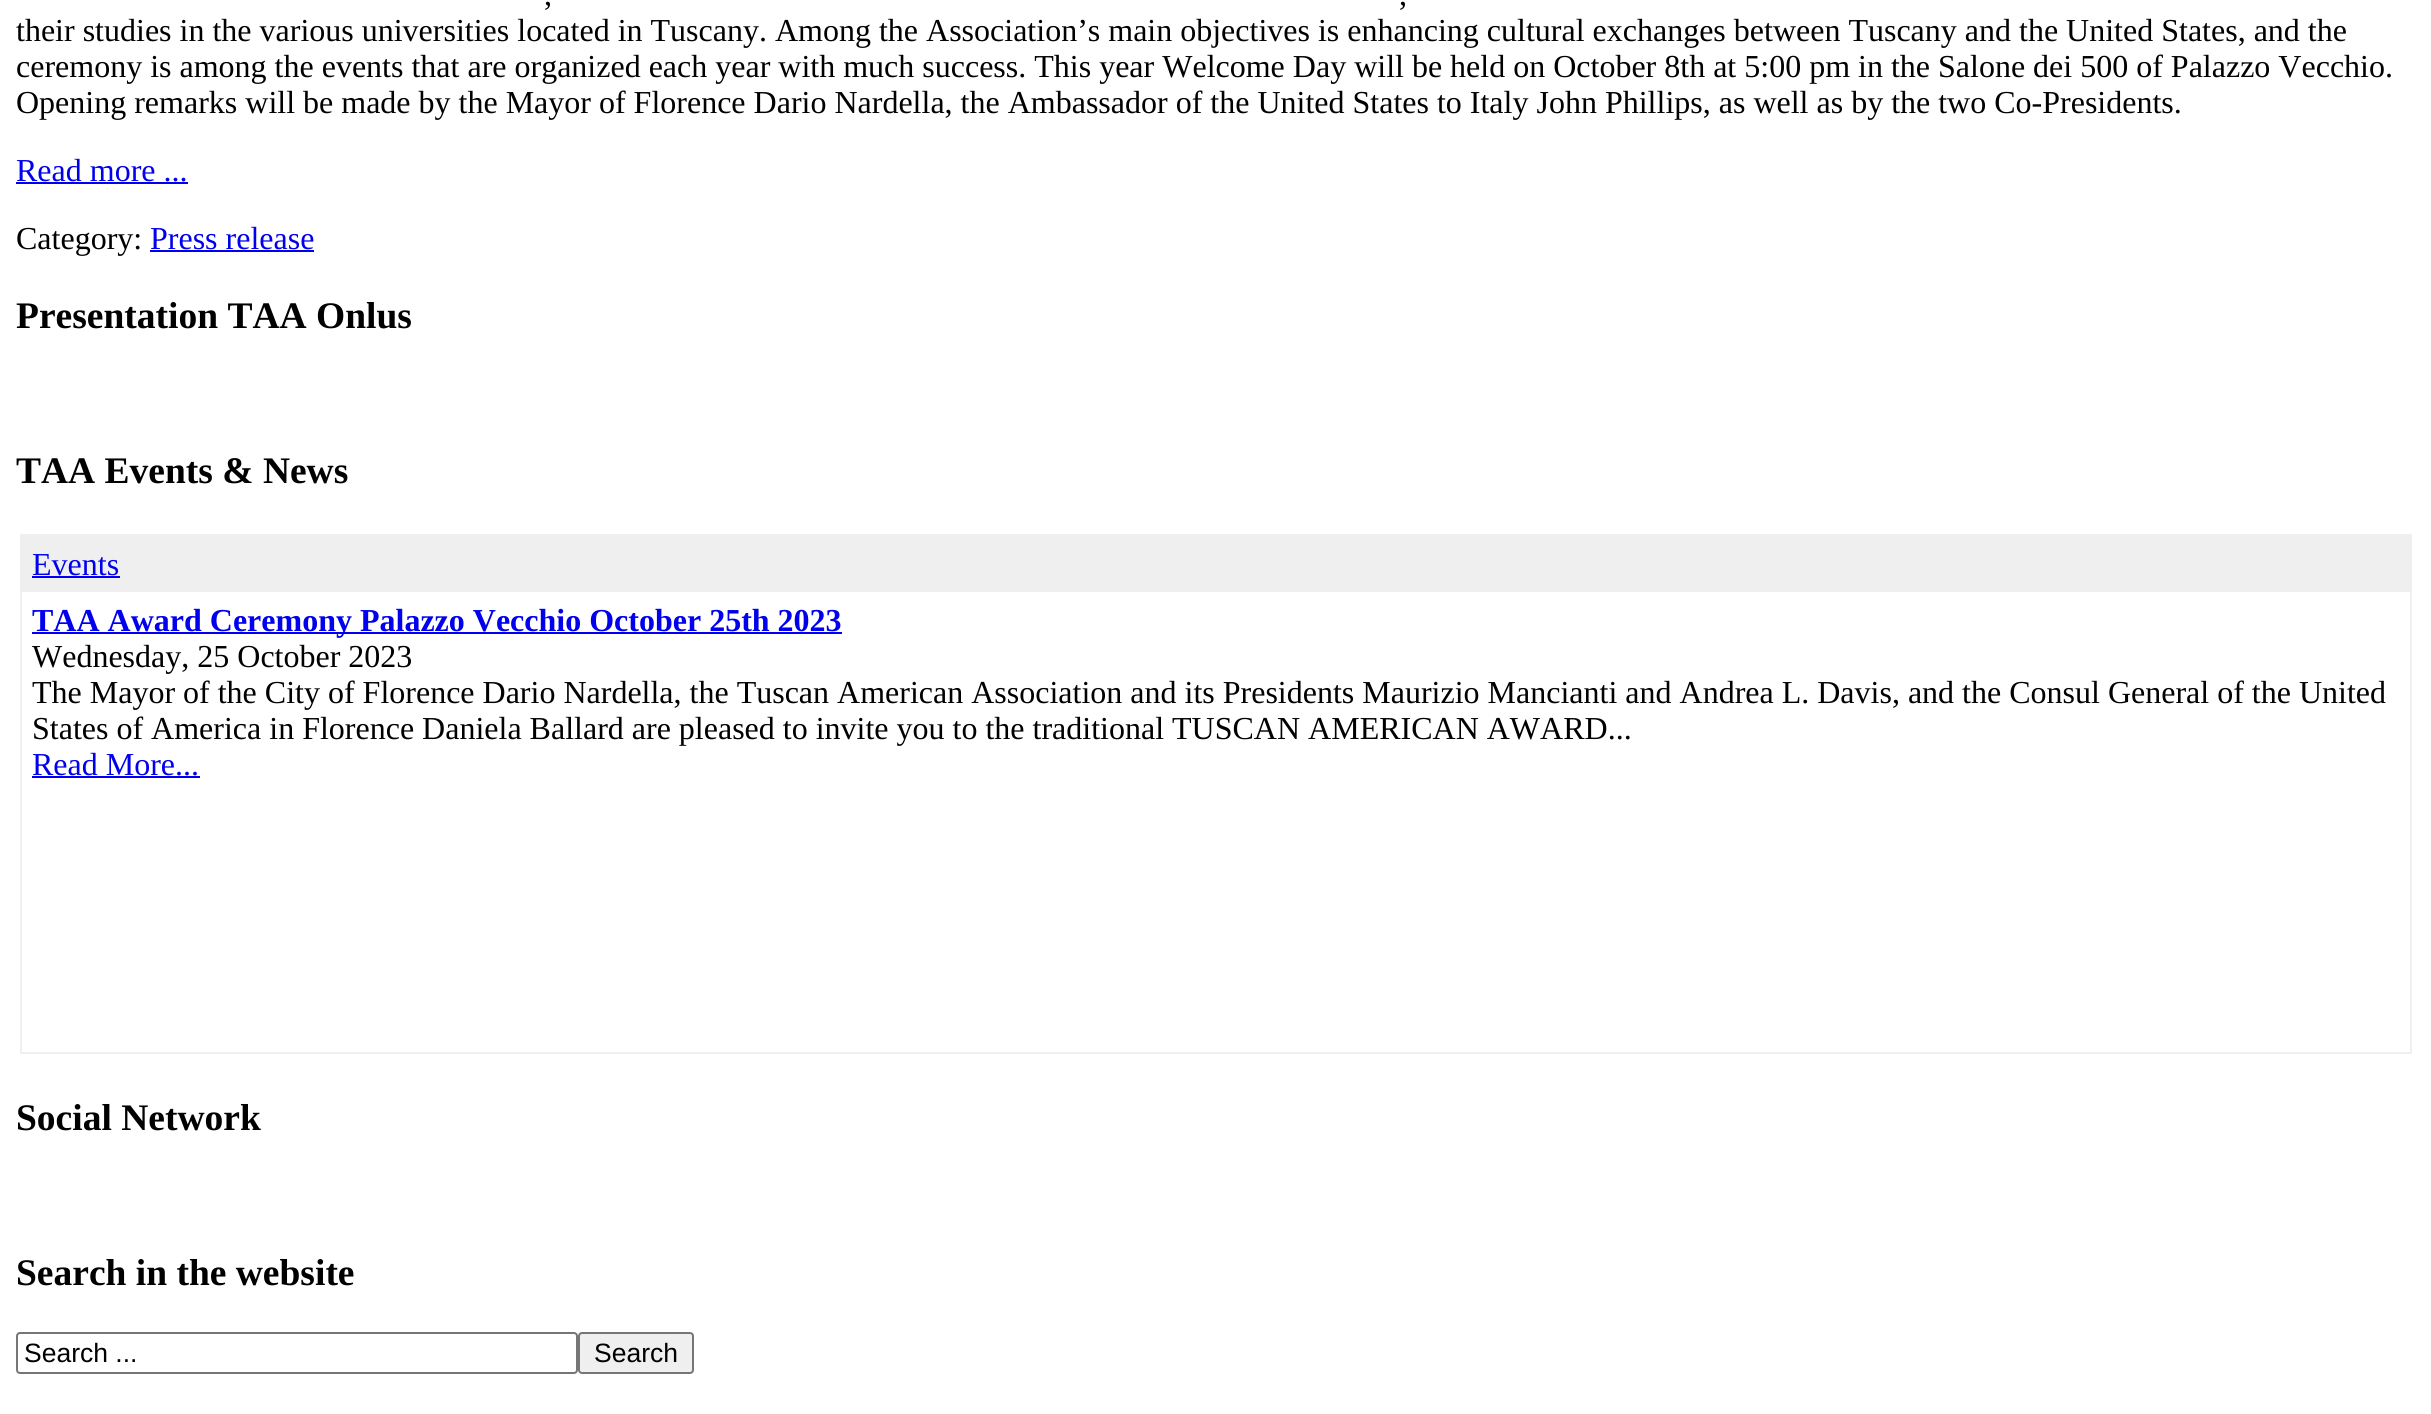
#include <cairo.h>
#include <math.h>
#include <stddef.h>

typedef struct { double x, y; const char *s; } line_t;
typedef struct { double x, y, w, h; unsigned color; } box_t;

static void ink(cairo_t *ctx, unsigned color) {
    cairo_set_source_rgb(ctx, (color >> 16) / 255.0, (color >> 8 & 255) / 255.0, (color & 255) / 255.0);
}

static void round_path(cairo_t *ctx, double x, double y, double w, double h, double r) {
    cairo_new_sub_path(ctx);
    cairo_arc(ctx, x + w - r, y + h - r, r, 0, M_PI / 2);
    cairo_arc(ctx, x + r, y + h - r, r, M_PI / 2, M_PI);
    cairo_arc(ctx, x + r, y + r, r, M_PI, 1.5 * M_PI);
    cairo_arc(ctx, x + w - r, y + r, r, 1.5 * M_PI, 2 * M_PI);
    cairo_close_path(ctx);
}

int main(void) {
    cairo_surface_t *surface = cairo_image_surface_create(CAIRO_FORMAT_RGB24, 2431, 1414);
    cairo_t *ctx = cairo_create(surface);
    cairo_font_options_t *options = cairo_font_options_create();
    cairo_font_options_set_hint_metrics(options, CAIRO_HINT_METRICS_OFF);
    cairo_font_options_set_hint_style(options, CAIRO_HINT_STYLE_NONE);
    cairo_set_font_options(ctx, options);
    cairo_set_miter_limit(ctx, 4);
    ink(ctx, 0xFFFFFF);
    cairo_paint(ctx);
    cairo_select_font_face(ctx, "Liberation Serif", CAIRO_FONT_SLANT_NORMAL, CAIRO_FONT_WEIGHT_NORMAL);
    cairo_set_font_size(ctx, 32);
    ink(ctx, 0x000000);
    {
        static const line_t items[] = {
            {544, 5, ","},
            {1399, 5, ","},
            {16, 41, "their studies in the various universities located in Tuscany. Among the Association’s main objectives is enhancing cultural exchanges between Tuscany and the United States, and the"},
            {16, 77, "ceremony is among the events that are organized each year with much success. This year Welcome Day will be held on October 8th at 5:00 pm in the Salone dei 500 of Palazzo Vecchio."},
            {16, 113, "Opening remarks will be made by the Mayor of Florence Dario Nardella, the Ambassador of the United States to Italy John Phillips, as well as by the two Co-Presidents."},
        };
        for (size_t i = 0; i < sizeof items / sizeof *items; i++) {
            cairo_move_to(ctx, items[i].x, items[i].y);
            cairo_show_text(ctx, items[i].s);
        }
    }
    ink(ctx, 0x0000EE);
    cairo_move_to(ctx, 16, 181);
    cairo_show_text(ctx, "Read more ...");
    cairo_rectangle(ctx, 16, 182, 172, 2);
    cairo_fill(ctx);
    ink(ctx, 0x000000);
    cairo_move_to(ctx, 16, 249);
    cairo_show_text(ctx, "Category:");
    ink(ctx, 0x0000EE);
    cairo_move_to(ctx, 150, 249);
    cairo_show_text(ctx, "Press release");
    cairo_rectangle(ctx, 150, 250, 164, 2);
    cairo_fill(ctx);
    cairo_select_font_face(ctx, "Liberation Serif", CAIRO_FONT_SLANT_NORMAL, CAIRO_FONT_WEIGHT_BOLD);
    cairo_set_font_size(ctx, 37.5);
    ink(ctx, 0x000000);
    cairo_move_to(ctx, 16, 328);
    cairo_show_text(ctx, "Presentation TAA Onlus");
    cairo_move_to(ctx, 16, 483);
    cairo_show_text(ctx, "TAA Events & News");
    ink(ctx, 0xEFEFEF);
    cairo_rectangle(ctx, 20, 534, 2392, 58);
    cairo_fill(ctx);
    cairo_select_font_face(ctx, "Liberation Serif", CAIRO_FONT_SLANT_NORMAL, CAIRO_FONT_WEIGHT_NORMAL);
    cairo_set_font_size(ctx, 32);
    ink(ctx, 0x0000EE);
    cairo_move_to(ctx, 32, 575);
    cairo_show_text(ctx, "Events");
    {
        static const box_t items[] = {
            {32, 576, 88, 2, 0x0000EE},
            {2410, 592, 2, 462, 0xEFEFEF},
            {20, 1052, 2392, 2, 0xEFEFEF},
            {20, 592, 2, 462, 0xEFEFEF},
            {32, 632, 810, 2, 0x0000EE},
        };
        for (size_t i = 0; i < sizeof items / sizeof *items; i++) {
            ink(ctx, items[i].color);
            cairo_rectangle(ctx, items[i].x, items[i].y, items[i].w, items[i].h);
            cairo_fill(ctx);
        }
    }
    cairo_select_font_face(ctx, "Liberation Serif", CAIRO_FONT_SLANT_NORMAL, CAIRO_FONT_WEIGHT_BOLD);
    cairo_move_to(ctx, 32, 631);
    cairo_show_text(ctx, "TAA Award Ceremony Palazzo Vecchio October 25th 2023");
    cairo_select_font_face(ctx, "Liberation Serif", CAIRO_FONT_SLANT_NORMAL, CAIRO_FONT_WEIGHT_NORMAL);
    ink(ctx, 0x000000);
    {
        static const line_t items[] = {
            {32, 667, "Wednesday, 25 October 2023"},
            {32, 703, "The Mayor of the City of Florence Dario Nardella, the Tuscan American Association and its Presidents Maurizio Mancianti and Andrea L. Davis, and the Consul General of the United"},
            {32, 739, "States of America in Florence Daniela Ballard are pleased to invite you to the traditional TUSCAN AMERICAN AWARD..."},
        };
        for (size_t i = 0; i < sizeof items / sizeof *items; i++) {
            cairo_move_to(ctx, items[i].x, items[i].y);
            cairo_show_text(ctx, items[i].s);
        }
    }
    ink(ctx, 0x0000EE);
    cairo_move_to(ctx, 32, 775);
    cairo_show_text(ctx, "Read More...");
    cairo_rectangle(ctx, 32, 776, 168, 2);
    cairo_fill(ctx);
    cairo_select_font_face(ctx, "Liberation Serif", CAIRO_FONT_SLANT_NORMAL, CAIRO_FONT_WEIGHT_BOLD);
    cairo_set_font_size(ctx, 37.5);
    ink(ctx, 0x000000);
    cairo_move_to(ctx, 16, 1130);
    cairo_show_text(ctx, "Social Network");
    cairo_move_to(ctx, 16, 1285);
    cairo_show_text(ctx, "Search in the website");
    round_path(ctx, 17, 1333, 560, 40, 3);
    ink(ctx, 0x767676);
    cairo_stroke(ctx);
    cairo_select_font_face(ctx, "Liberation Sans", CAIRO_FONT_SLANT_NORMAL, CAIRO_FONT_WEIGHT_NORMAL);
    cairo_set_font_size(ctx, 26.5);
    ink(ctx, 0x000000);
    cairo_move_to(ctx, 24, 1362);
    cairo_show_text(ctx, "Search ...");
    ink(ctx, 0xEFEFEF);
    round_path(ctx, 579, 1333, 114, 40, 3);
    cairo_fill_preserve(ctx);
    ink(ctx, 0x767676);
    cairo_stroke(ctx);
    ink(ctx, 0x000000);
    cairo_move_to(ctx, 594, 1362);
    cairo_show_text(ctx, "Search");
    cairo_surface_write_to_png(surface, "image.png");
    cairo_font_options_destroy(options);
    cairo_destroy(ctx);
    cairo_surface_destroy(surface);
    return 0;
}
